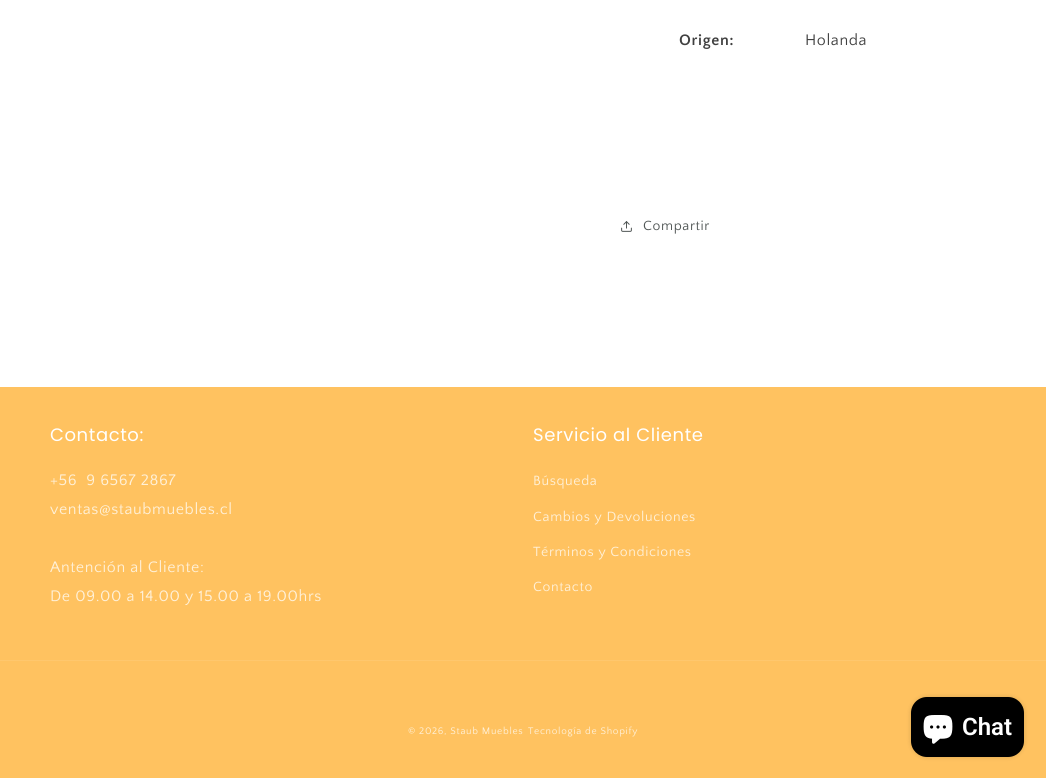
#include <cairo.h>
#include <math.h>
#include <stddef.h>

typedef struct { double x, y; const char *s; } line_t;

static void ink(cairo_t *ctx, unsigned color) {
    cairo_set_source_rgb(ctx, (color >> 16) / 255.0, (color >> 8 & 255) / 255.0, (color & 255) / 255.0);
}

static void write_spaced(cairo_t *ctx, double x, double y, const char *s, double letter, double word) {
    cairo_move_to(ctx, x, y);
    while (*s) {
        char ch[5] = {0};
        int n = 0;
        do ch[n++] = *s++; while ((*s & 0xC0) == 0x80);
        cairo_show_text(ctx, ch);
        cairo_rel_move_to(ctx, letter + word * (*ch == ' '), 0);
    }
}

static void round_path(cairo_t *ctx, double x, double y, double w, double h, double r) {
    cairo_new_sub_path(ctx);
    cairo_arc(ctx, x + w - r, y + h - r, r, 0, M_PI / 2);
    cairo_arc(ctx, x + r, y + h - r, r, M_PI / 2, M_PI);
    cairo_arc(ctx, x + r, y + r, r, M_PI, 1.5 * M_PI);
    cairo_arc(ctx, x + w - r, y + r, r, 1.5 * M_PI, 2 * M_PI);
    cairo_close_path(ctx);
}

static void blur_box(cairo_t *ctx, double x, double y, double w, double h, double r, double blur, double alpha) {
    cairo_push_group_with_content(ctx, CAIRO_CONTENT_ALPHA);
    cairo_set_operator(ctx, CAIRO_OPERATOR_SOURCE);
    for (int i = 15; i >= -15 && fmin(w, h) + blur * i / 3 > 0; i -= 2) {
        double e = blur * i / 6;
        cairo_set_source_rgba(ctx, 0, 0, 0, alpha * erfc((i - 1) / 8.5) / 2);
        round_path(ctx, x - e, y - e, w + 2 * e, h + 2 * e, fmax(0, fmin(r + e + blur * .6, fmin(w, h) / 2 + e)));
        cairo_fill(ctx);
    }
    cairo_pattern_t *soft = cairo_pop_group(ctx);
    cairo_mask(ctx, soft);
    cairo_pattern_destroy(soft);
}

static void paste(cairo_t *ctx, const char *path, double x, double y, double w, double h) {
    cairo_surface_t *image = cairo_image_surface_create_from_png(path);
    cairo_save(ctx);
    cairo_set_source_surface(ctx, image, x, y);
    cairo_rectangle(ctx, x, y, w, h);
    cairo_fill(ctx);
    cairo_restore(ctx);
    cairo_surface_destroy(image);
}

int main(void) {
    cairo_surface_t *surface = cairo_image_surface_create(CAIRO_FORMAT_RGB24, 1046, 778);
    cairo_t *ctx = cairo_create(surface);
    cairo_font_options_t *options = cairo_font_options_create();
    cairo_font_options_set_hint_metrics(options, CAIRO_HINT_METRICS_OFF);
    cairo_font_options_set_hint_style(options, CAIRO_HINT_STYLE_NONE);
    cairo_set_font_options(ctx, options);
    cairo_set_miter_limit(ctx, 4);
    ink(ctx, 0xFFFFFF);
    cairo_paint(ctx);
    cairo_select_font_face(ctx, "Quattrocento Sans", CAIRO_FONT_SLANT_NORMAL, CAIRO_FONT_WEIGHT_BOLD);
    cairo_set_font_size(ctx, 16);
    ink(ctx, 0x404040);
    write_spaced(ctx, 679, 45, "Origen:", 0.6, 0);
    cairo_select_font_face(ctx, "Quattrocento Sans", CAIRO_FONT_SLANT_NORMAL, CAIRO_FONT_WEIGHT_NORMAL);
    write_spaced(ctx, 805, 45, "Holanda", 0.6, 0);
    paste(ctx, "media/1.png", 621, 221, 11, 11);
    cairo_set_font_size(ctx, 14);
    ink(ctx, 0x505655);
    write_spaced(ctx, 643, 230, "Compartir", 0.6, 0);
    ink(ctx, 0xFFC260);
    cairo_rectangle(ctx, 0, 387, 1046, 391);
    cairo_fill(ctx);
    cairo_select_font_face(ctx, "Poppins", CAIRO_FONT_SLANT_NORMAL, CAIRO_FONT_WEIGHT_NORMAL);
    cairo_set_font_size(ctx, 18);
    ink(ctx, 0xFFFFFF);
    write_spaced(ctx, 50, 441, "Contacto:", 0.6, 0);
    cairo_select_font_face(ctx, "Quattrocento Sans", CAIRO_FONT_SLANT_NORMAL, CAIRO_FONT_WEIGHT_NORMAL);
    cairo_set_font_size(ctx, 16);
    ink(ctx, 0xFFF0D7);
    {
        static const line_t items[] = {
            {50, 485, "+56  9 6567 2867"},
            {50, 514, "ventas@staubmuebles.cl"},
            {50, 572, "Antención al Cliente:"},
            {50, 601, "De 09.00 a 14.00 y 15.00 a 19.00hrs"},
        };
        for (size_t i = 0; i < sizeof items / sizeof *items; i++) {
            write_spaced(ctx, items[i].x, items[i].y, items[i].s, 0.6, 0);
        }
    }
    cairo_select_font_face(ctx, "Poppins", CAIRO_FONT_SLANT_NORMAL, CAIRO_FONT_WEIGHT_NORMAL);
    cairo_set_font_size(ctx, 18);
    ink(ctx, 0xFFFFFF);
    write_spaced(ctx, 533, 441, "Servicio al Cliente", 0.6, 0);
    cairo_select_font_face(ctx, "Quattrocento Sans", CAIRO_FONT_SLANT_NORMAL, CAIRO_FONT_WEIGHT_NORMAL);
    cairo_set_font_size(ctx, 14);
    ink(ctx, 0xFFF0D7);
    {
        static const line_t items[] = {
            {533, 485, "Búsqueda"},
            {533, 521, "Cambios y Devoluciones"},
            {533, 556, "Términos y Condiciones"},
            {533, 591, "Contacto"},
        };
        for (size_t i = 0; i < sizeof items / sizeof *items; i++) {
            write_spaced(ctx, items[i].x, items[i].y, items[i].s, 0.6, 0);
        }
    }
    ink(ctx, 0xFFC76D);
    cairo_rectangle(ctx, 0, 660, 1046, 1);
    cairo_fill(ctx);
    cairo_set_font_size(ctx, 10);
    ink(ctx, 0xFFF0D7);
    write_spaced(ctx, 408, 734, "© 2026, Staub Muebles", 0.7, 0);
    write_spaced(ctx, 528, 734, "Tecnología de Shopify", 0.7, 0);
    ink(ctx, 0x000000);
    blur_box(ctx, 911, 697, 113, 60, 16, 2.5, 0.15);
    ink(ctx, 0x000000);
    round_path(ctx, 911, 697, 113, 60, 16);
    cairo_fill(ctx);
    paste(ctx, "media/2.png", 923, 715, 30, 29);
    cairo_select_font_face(ctx, "Roboto SemiBold", CAIRO_FONT_SLANT_NORMAL, CAIRO_FONT_WEIGHT_NORMAL);
    cairo_set_font_size(ctx, 24);
    ink(ctx, 0xFFFFFF);
    cairo_move_to(ctx, 962, 735);
    cairo_show_text(ctx, "Chat");
    cairo_surface_write_to_png(surface, "image.png");
    cairo_font_options_destroy(options);
    cairo_destroy(ctx);
    cairo_surface_destroy(surface);
    return 0;
}
